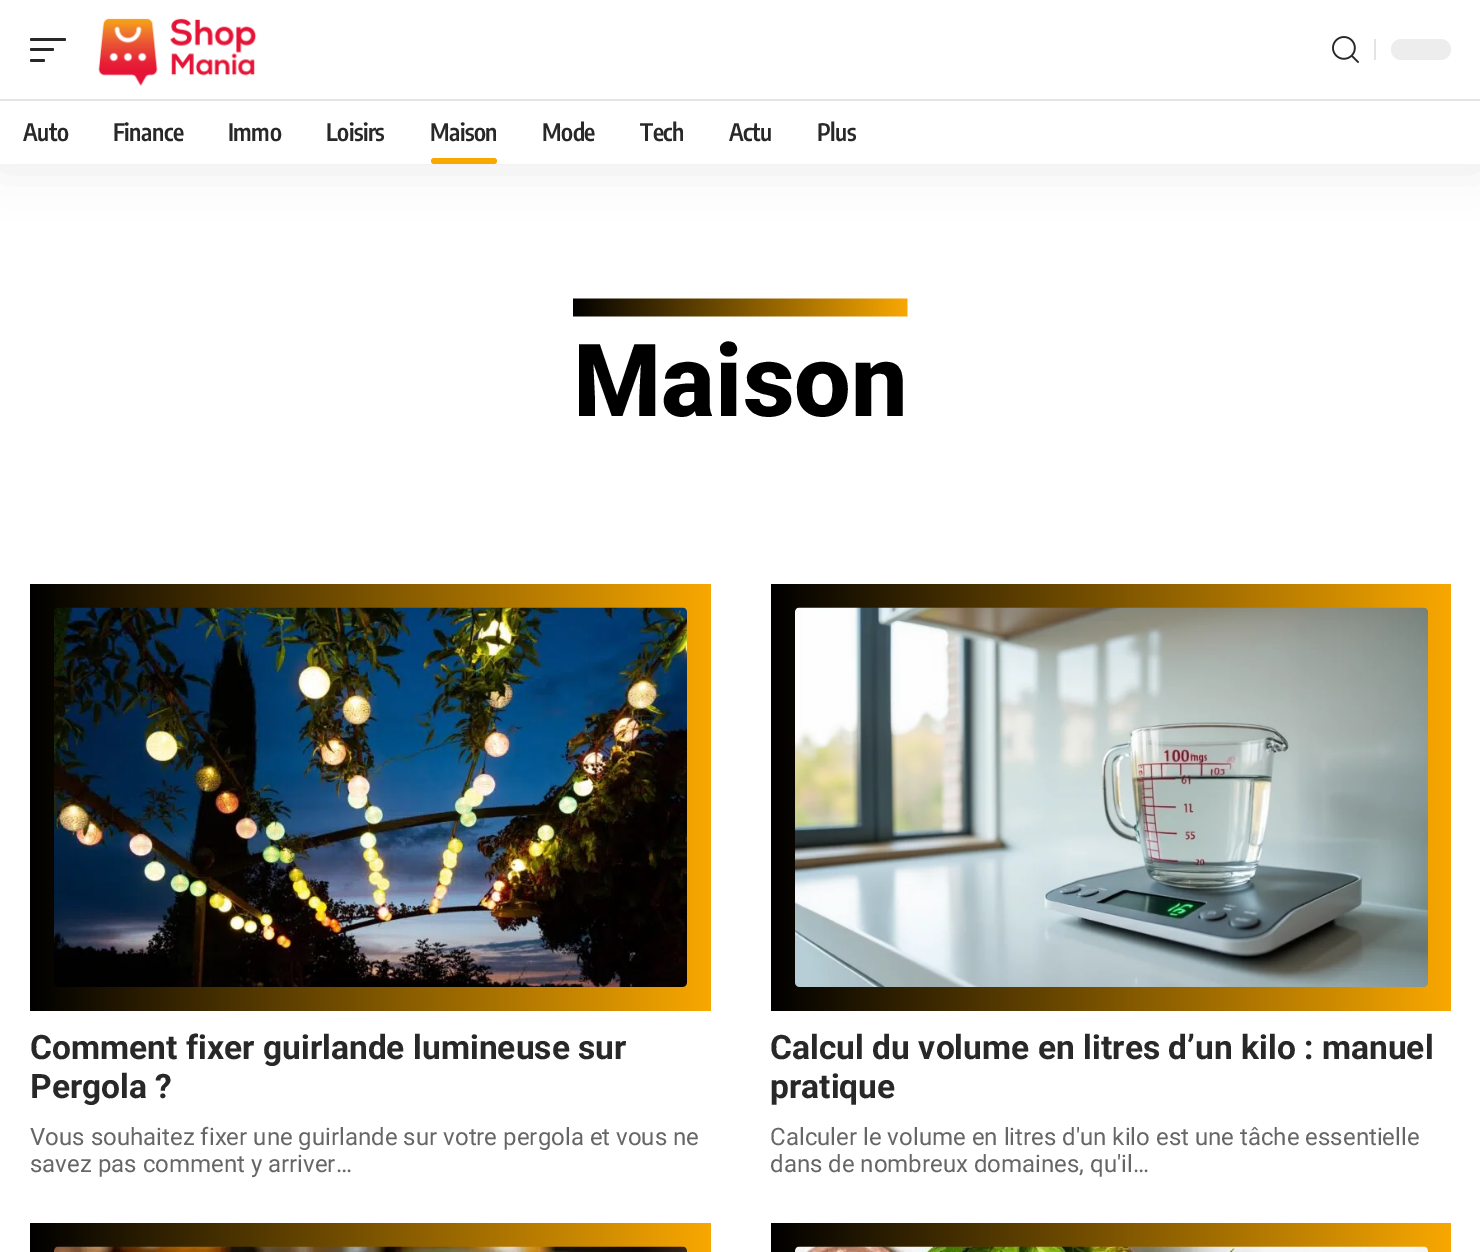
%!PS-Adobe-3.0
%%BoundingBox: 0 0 1480 1252
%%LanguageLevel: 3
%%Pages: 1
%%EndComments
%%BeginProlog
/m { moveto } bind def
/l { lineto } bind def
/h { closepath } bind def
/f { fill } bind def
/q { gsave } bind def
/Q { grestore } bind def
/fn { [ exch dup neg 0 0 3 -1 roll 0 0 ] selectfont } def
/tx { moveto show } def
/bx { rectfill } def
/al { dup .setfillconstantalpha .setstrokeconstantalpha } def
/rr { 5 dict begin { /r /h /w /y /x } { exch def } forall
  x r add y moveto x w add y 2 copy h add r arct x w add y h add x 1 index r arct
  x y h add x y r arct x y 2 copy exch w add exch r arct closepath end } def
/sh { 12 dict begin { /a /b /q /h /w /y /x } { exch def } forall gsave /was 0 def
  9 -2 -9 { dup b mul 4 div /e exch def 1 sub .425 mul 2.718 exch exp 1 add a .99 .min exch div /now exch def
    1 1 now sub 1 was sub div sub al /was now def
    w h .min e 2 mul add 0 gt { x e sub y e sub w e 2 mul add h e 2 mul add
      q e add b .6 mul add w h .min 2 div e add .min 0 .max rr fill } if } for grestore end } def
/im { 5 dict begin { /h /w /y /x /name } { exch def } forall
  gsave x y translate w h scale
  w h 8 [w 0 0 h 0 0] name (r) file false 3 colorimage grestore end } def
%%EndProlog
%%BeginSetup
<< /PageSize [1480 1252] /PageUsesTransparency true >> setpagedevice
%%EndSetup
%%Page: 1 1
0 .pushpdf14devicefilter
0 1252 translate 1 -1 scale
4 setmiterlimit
1 setgray
0 0 1480 1252 bx
0 setgray
0 6 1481 164 0 22.5 0.07 sh
1 setgray
0 0 1480 164 bx
0.157 setgray
30 38 36 3 1.5 rr f
30 48 24 3 1.5 rr f
30 59 15 3 1.5 rr f
(image0.raw) 98 18 159 68 im
(image1.raw) 1332 36 27 27 im
0.894 setgray
1374 39 2 21 bx
0.929 setgray
1391 39 60 21 10.5 rr f
0.894 setgray
0 99 1480 2 bx
/EncodeSansCondensed-SemiBold 24 fn
0.157 setgray
23 141 m -0.5 0 (Auto) ashow
113 141 m -0.5 0 (Finance) ashow
228 141 m -0.5 0 (Immo) ashow
326 141 m -0.5 0 (Loisirs) ashow
430 141 m -0.5 0 (Maison) ashow
0.976 0.659 0 setrgbcolor
431 158 66 6 3 rr f
0.157 setgray
542 141 m -0.5 0 (Mode) ashow
640 141 m -0.5 0 (Tech) ashow
729 141 m -0.5 0 (Actu) ashow
817 141 m -0.5 0 (Plus) ashow
(image2.raw) 573 298 335 19 im
/Roboto-ExtraBold 101 fn
0 setgray
(Maison) 573 416 tx
q 30 584 m 711 584 l 711 1011 l 30 1011 l h clip newpath
<< /ShadingType 2 /ColorSpace /DeviceRGB /Coords [711 797 30 797] /Extend [true true] /Function << /FunctionType 2 /Domain [0 1] /C0 [0.976 0.659 0] /C1 [0 0 0] /N 1 >> >> shfill Q
(image3.raw) 54 607 633 380 im
/Roboto-Bold 33.6 fn
0.157 setgray
(Comment fixer guirlande lumineuse sur) 30 1059 tx
(Pergola ?) 30 1098 tx
/Roboto-Regular 24 fn
0.4 setgray
(Vous souhaitez fixer une guirlande sur votre pergola et vous ne) 30 1145 tx
(savez pas comment y arriver…) 30 1172 tx
q 771 584 m 1451 584 l 1451 1011 l 771 1011 l h clip newpath
<< /ShadingType 2 /ColorSpace /DeviceRGB /Coords [1451 797 771 797] /Extend [true true] /Function << /FunctionType 2 /Domain [0 1] /C0 [0.976 0.659 0] /C1 [0 0 0] /N 1 >> >> shfill Q
(image4.raw) 795 607 633 380 im
/Roboto-Bold 33.6 fn
0.157 setgray
(Calcul du volume en litres d’un kilo : manuel) 770 1059 tx
(pratique) 770 1098 tx
/Roboto-Regular 24 fn
0.4 setgray
(Calculer le volume en litres d'un kilo est une tâche essentielle) 770 1145 tx
(dans de nombreux domaines, qu'il…) 770 1172 tx
q 30 1223 m 711 1223 l 711 1252 l 30 1252 l h clip newpath
<< /ShadingType 2 /ColorSpace /DeviceRGB /Coords [711 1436 30 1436] /Extend [true true] /Function << /FunctionType 2 /Domain [0 1] /C0 [0.976 0.659 0] /C1 [0 0 0] /N 1 >> >> shfill Q
(image5.raw) 54 1246 633 6 im
q 771 1223 m 1451 1223 l 1451 1252 l 771 1252 l h clip newpath
<< /ShadingType 2 /ColorSpace /DeviceRGB /Coords [1451 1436 771 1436] /Extend [true true] /Function << /FunctionType 2 /Domain [0 1] /C0 [0.976 0.659 0] /C1 [0 0 0] /N 1 >> >> shfill Q
(image6.raw) 795 1246 633 6 im
.poppdf14devicefilter showpage
%%EOF
